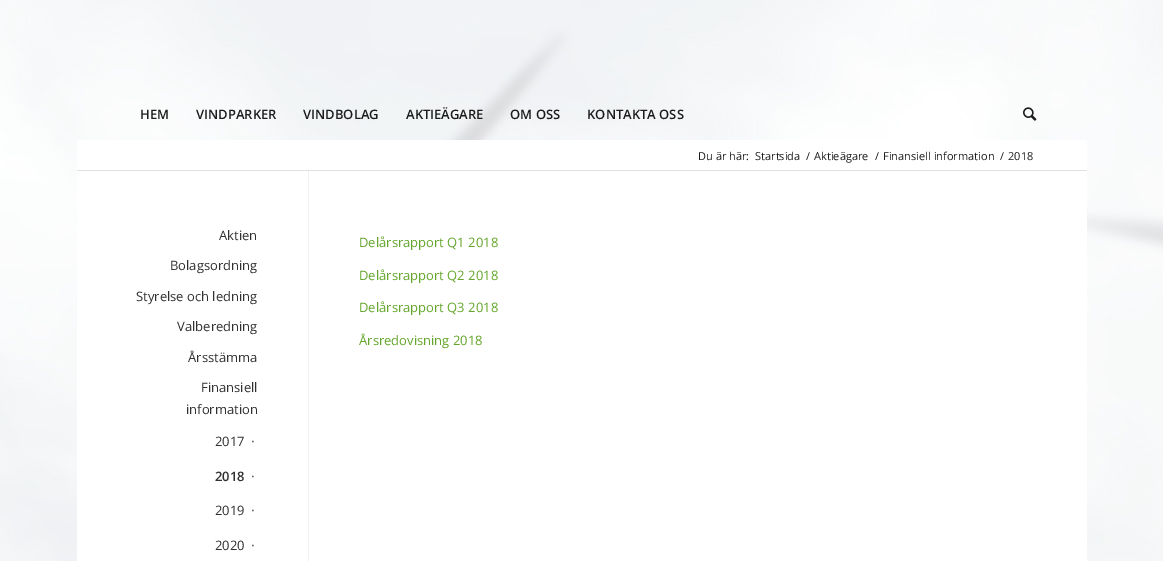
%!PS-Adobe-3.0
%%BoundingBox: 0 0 1163 561
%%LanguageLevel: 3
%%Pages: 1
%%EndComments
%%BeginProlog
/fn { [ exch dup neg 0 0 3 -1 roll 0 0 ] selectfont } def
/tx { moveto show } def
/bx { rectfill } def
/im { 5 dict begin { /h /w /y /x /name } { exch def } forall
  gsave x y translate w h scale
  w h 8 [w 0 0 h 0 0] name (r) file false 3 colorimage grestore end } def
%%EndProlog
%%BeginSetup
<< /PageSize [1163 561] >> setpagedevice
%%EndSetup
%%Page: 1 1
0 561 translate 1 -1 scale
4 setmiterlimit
1 setgray
0 0 1163 561 bx
(image0.raw) 0 0 1163 561 im
/OpenSans-SemiBold 13 fn
0.11 setgray
(HEM) 140 119 tx
(VINDPARKER) 196 119 tx
(VINDBOLAG) 303 119 tx
(AKTIEÄGARE) 406 119 tx
(OM OSS) 510 119 tx
(KONTAKTA OSS) 587 119 tx
(image1.raw) 1023 107 14 14 im
1 setgray
77 140 1010 30 bx
/OpenSans-Regular 11 fn
0.11 setgray
(Du är här:) 698 160 tx
(Startsida) 755 160 tx
(/) 806 160 tx
(Aktieägare) 814 160 tx
(/) 875 160 tx
(Finansiell information) 883 160 tx
(/) 1000 160 tx
(2018) 1008 160 tx
1 setgray
77 171 1010 390 bx
0.882 setgray
77 170 1010 1 bx
0.945 setgray
308 171 1 390 bx
/OpenSans-Regular 13 fn
0.188 setgray
(Aktien) 219 240 tx
(Bolagsordning) 170 270 tx
(Styrelse och ledning) 136 301 tx
(Valberedning) 177 331 tx
(Årsstämma) 188 362 tx
(Finansiell) 201 392 tx
(information) 186 414 tx
(2017) 215 446 tx
/LiberationSans-Regular 13 fn
(∙) 251 445 tx
/OpenSans-SemiBold 13 fn
(2018) 215 481 tx
/LiberationSans-Regular 13 fn
(∙) 251 480 tx
/OpenSans-Regular 13 fn
(2019) 215 515 tx
/LiberationSans-Regular 13 fn
(∙) 251 514 tx
/OpenSans-Regular 13 fn
(2020) 215 550 tx
/LiberationSans-Regular 13 fn
(∙) 251 549 tx
/OpenSans-Regular 13 fn
0.392 0.651 0.169 setrgbcolor
(Delårsrapport Q1 2018) 359 247 tx
(Delårsrapport Q2 2018) 359 280 tx
(Delårsrapport Q3 2018) 359 312 tx
(Årsredovisning 2018) 359 345 tx
showpage
%%EOF
